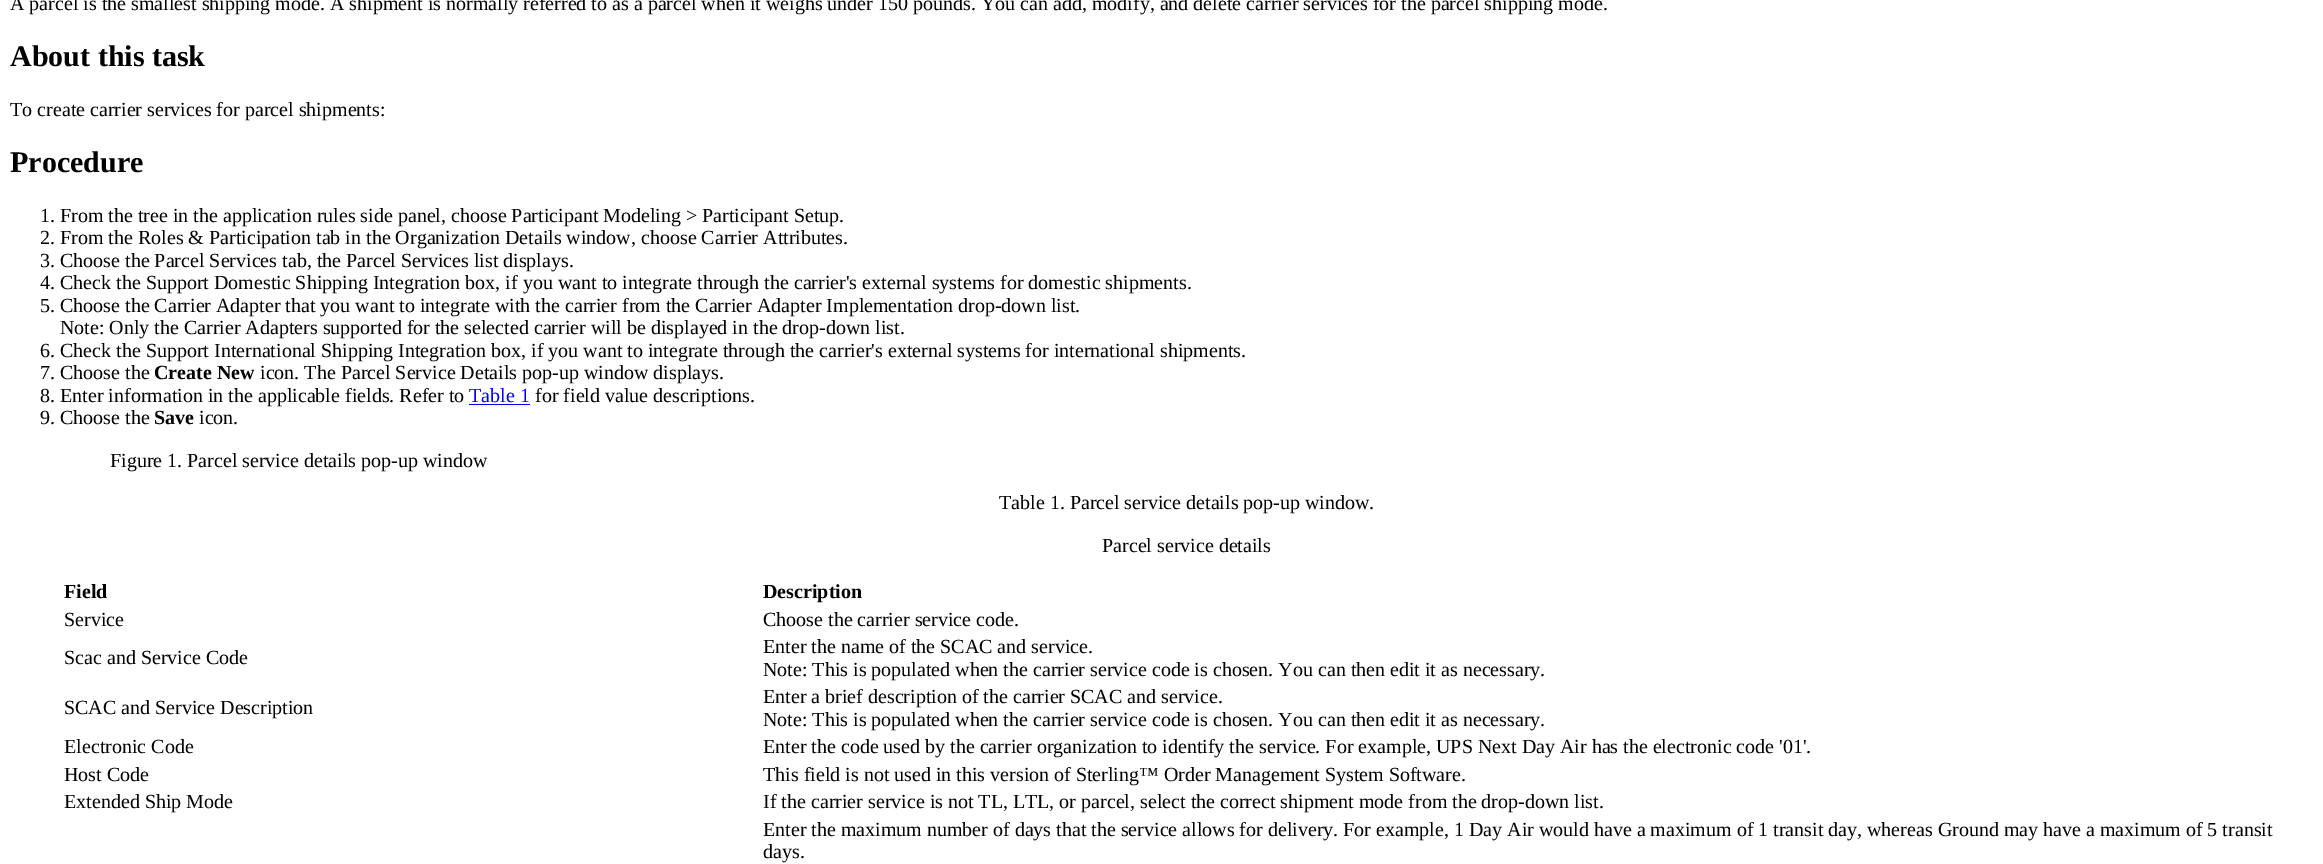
%!PS-Adobe-3.0
%%BoundingBox: 0 0 2323 864
%%LanguageLevel: 3
%%Pages: 1
%%EndComments
%%BeginProlog
/fn { [ exch dup neg 0 0 3 -1 roll 0 0 ] selectfont } def
/tx { moveto show } def
/bx { rectfill } def
%%EndProlog
%%BeginSetup
<< /PageSize [2323 864] >> setpagedevice
%%EndSetup
%%Page: 1 1
0 864 translate 1 -1 scale
4 setmiterlimit
1 setgray
0 0 2323 864 bx
/LiberationSerif-Regular 20 fn
0 setgray
(A parcel is the smallest shipping mode. A shipment is normally referred to as a parcel when it weighs under 150 pounds. You can add, modify, and delete carrier services for the parcel shipping mode.) 10 10 tx
/LiberationSerif-Bold 30 fn
(About this task) 10 66 tx
/LiberationSerif-Regular 20 fn
(To create carrier services for parcel shipments:) 10 116 tx
/LiberationSerif-Bold 30 fn
(Procedure) 10 172 tx
/LiberationSerif-Regular 20 fn
(1. From the tree in the application rules side panel, choose Participant Modeling > Participant Setup.) 40 222 tx
(2. From the Roles & Participation tab in the Organization Details window, choose Carrier Attributes.) 40 244 tx
(3. Choose the Parcel Services tab, the Parcel Services list displays.) 40 267 tx
(4. Check the Support Domestic Shipping Integration box, if you want to integrate through the carrier's external systems for domestic shipments.) 40 289 tx
(5. Choose the Carrier Adapter that you want to integrate with the carrier from the Carrier Adapter Implementation drop-down list.) 40 312 tx
(Note: Only the Carrier Adapters supported for the selected carrier will be displayed in the drop-down list.) 60 334 tx
(6. Check the Support International Shipping Integration box, if you want to integrate through the carrier's external systems for international shipments.) 40 357 tx
(7. Choose the) 40 379 tx
/LiberationSerif-Bold 20 fn
(Create New) 154 379 tx
/LiberationSerif-Regular 20 fn
(icon. The Parcel Service Details pop-up window displays.) 260 379 tx
(8. Enter information in the applicable fields. Refer to) 40 402 tx
0 0 0.933 setrgbcolor
(Table 1) 469 402 tx
469 404 61 1 bx
0 setgray
(for field value descriptions.) 535 402 tx
(9. Choose the) 40 424 tx
/LiberationSerif-Bold 20 fn
(Save) 154 424 tx
/LiberationSerif-Regular 20 fn
(icon.) 199 424 tx
(Figure 1. Parcel service details pop-up window) 110 467 tx
(Table 1. Parcel service details pop-up window.) 999 509 tx
(Parcel service details) 1102 552 tx
/LiberationSerif-Bold 20 fn
(Field) 64 598 tx
(Description) 763 598 tx
/LiberationSerif-Regular 20 fn
(Service) 64 626 tx
(Choose the carrier service code.) 763 626 tx
(Scac and Service Code) 64 664 tx
(Enter the name of the SCAC and service.) 763 653 tx
(Note: This is populated when the carrier service code is chosen. You can then edit it as necessary.) 763 676 tx
(SCAC and Service Description) 64 714 tx
(Enter a brief description of the carrier SCAC and service.) 763 703 tx
(Note: This is populated when the carrier service code is chosen. You can then edit it as necessary.) 763 726 tx
(Electronic Code) 64 753 tx
(Enter the code used by the carrier organization to identify the service. For example, UPS Next Day Air has the electronic code '01'.) 763 753 tx
(Host Code) 64 781 tx
(This field is not used in this version of Sterling™ Order Management System Software.) 763 781 tx
(Extended Ship Mode) 64 808 tx
(If the carrier service is not TL, LTL, or parcel, select the correct shipment mode from the drop-down list.) 763 808 tx
(Enter the maximum number of days that the service allows for delivery. For example, 1 Day Air would have a maximum of 1 transit day, whereas Ground may have a maximum of 5 transit) 763 836 tx
(days.) 763 858 tx
showpage
%%EOF
